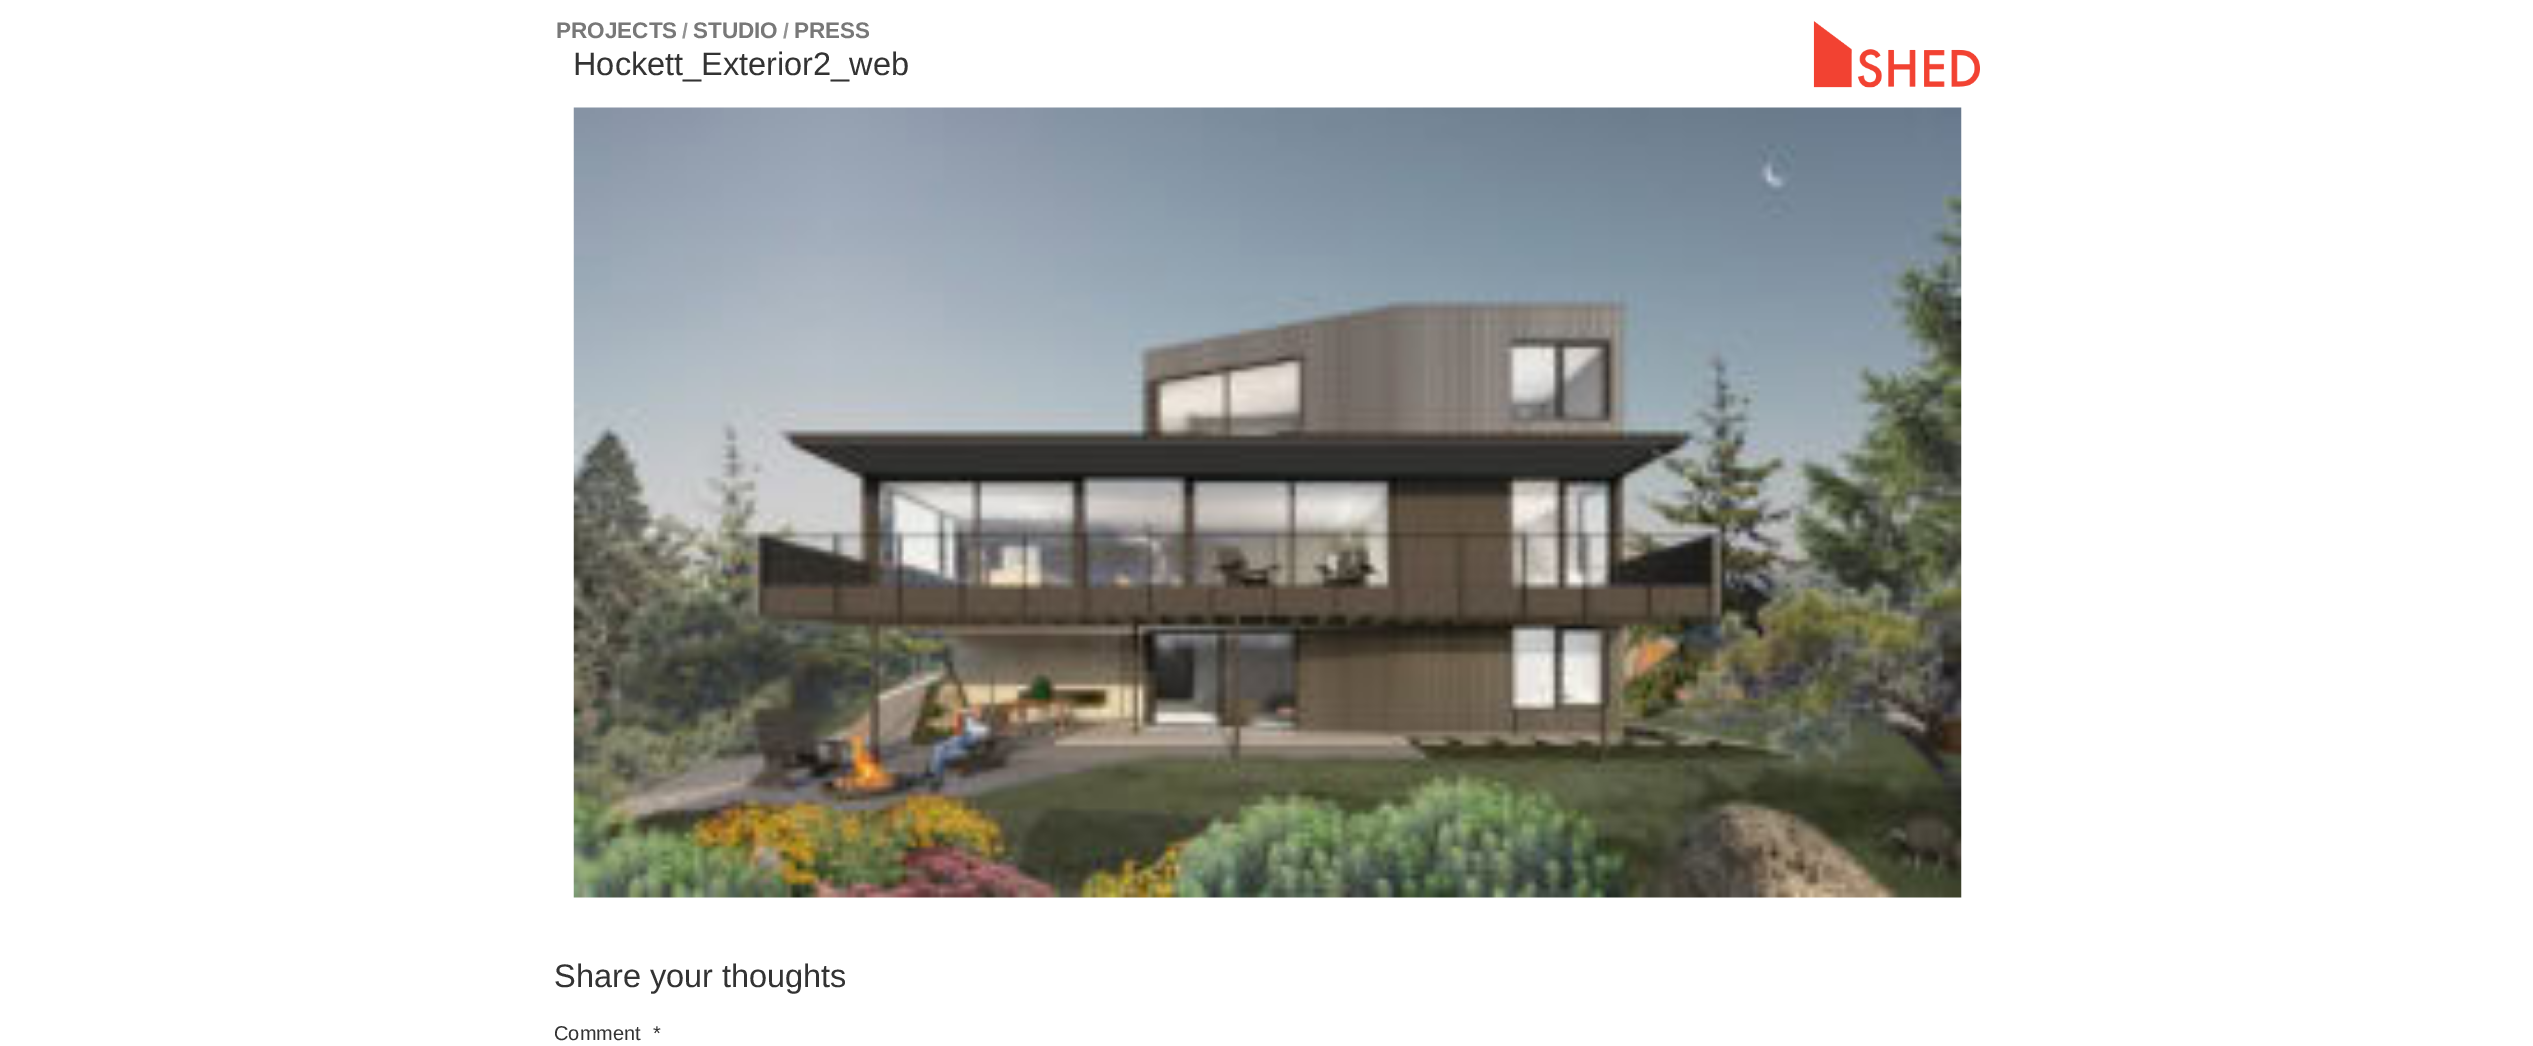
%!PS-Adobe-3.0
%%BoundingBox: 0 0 2533 1046
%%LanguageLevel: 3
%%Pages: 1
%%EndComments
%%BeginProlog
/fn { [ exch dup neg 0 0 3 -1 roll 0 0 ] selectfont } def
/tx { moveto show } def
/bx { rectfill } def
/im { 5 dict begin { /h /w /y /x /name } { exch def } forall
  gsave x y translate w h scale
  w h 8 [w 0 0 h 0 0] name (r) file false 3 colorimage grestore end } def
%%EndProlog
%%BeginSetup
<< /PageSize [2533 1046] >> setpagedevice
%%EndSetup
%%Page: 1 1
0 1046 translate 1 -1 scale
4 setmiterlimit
1 setgray
0 0 2533 1046 bx
/LiberationSans-Bold 22.5 fn
0.471 setgray
(PROJECTS) 556 38 tx
/LiberationSans-Bold 21 fn
0.576 setgray
(/) 682 38 tx
/LiberationSans-Bold 22.5 fn
0.471 setgray
(STUDIO) 693 38 tx
/LiberationSans-Bold 21 fn
0.576 setgray
(/) 783 38 tx
/LiberationSans-Bold 22.5 fn
0.471 setgray
(PRESS) 794 38 tx
(image0.raw) 1813 21 167 67 im
/LiberationSans-Regular 32.5 fn
0.2 setgray
(Hockett_Exterior2_web) 573 75 tx
(image1.raw) 573 107 1389 791 im
(Share your thoughts) 554 987 tx
/LiberationSans-Regular 20 fn
(Comment) 554 1040 tx
(*) 653 1040 tx
showpage
%%EOF
